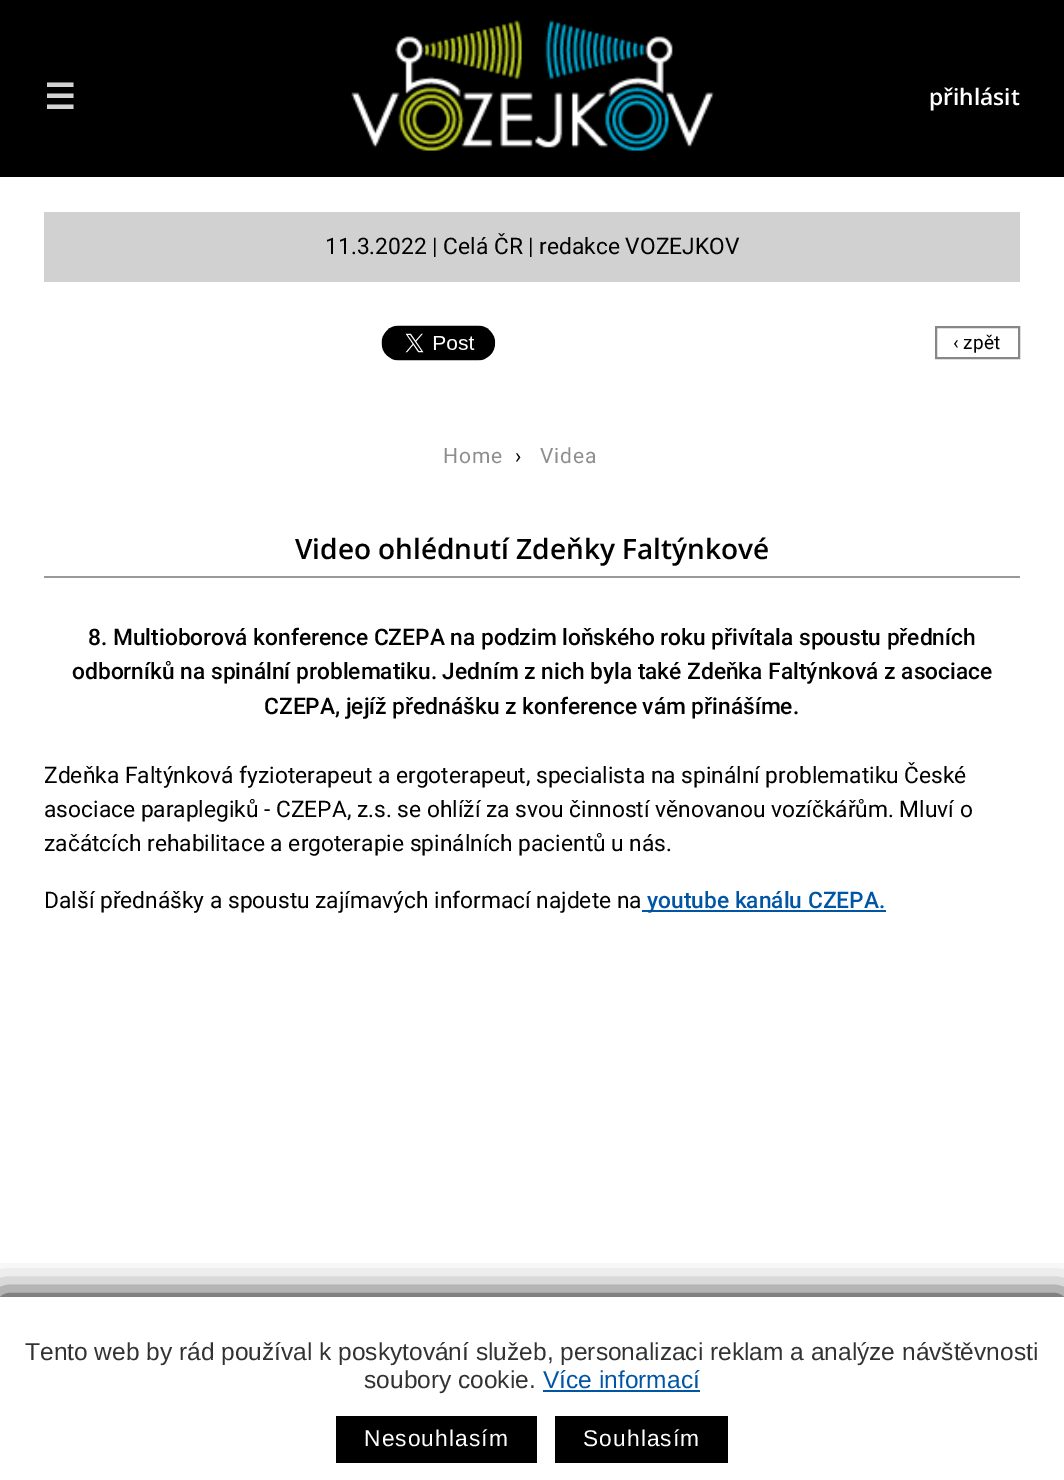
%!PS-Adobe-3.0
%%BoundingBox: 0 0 1064 1480
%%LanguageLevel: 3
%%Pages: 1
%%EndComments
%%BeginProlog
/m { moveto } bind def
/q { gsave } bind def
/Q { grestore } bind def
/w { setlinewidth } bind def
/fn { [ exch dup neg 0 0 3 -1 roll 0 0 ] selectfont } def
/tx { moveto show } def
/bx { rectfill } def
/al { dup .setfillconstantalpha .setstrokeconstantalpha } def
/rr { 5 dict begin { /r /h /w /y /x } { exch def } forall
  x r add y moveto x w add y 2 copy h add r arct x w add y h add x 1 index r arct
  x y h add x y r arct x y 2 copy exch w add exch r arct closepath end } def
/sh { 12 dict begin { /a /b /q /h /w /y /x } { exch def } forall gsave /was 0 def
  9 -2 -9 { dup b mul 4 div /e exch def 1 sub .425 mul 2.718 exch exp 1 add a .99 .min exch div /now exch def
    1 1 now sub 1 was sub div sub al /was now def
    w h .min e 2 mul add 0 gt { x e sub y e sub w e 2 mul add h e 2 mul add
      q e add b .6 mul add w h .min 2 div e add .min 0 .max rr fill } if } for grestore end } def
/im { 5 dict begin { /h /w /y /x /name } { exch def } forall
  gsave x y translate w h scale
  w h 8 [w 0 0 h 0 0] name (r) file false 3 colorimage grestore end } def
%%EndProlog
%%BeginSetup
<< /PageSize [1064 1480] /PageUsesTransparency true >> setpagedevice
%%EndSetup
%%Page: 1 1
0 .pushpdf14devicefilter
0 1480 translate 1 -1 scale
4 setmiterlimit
1 setgray
0 0 1064 1480 bx
0 setgray
0 0 1064 177 bx
/DejaVuSans-Bold 35 fn
0.827 setgray
(☰) 44 109 tx
(image0.raw) 351 20 363 131 im
/OpenSans-SemiBold 22.75 fn
1 setgray
(přihlásit) 929 105 tx
0.82 setgray
44 212 976 70 bx
/Roboto-Regular 22.75 fn
0 setgray
(11.3.2022 | Celá ČR | redakce VOZEJKOV) 325 254 tx
(image1.raw) 381 325 115 36 im
0.529 setgray
2 w
936 327 83 31 rectstroke
/Roboto-Regular 19 fn
0 setgray
(‹ zpět) 953 349 tx
/Roboto-Regular 21 fn
0.561 0.557 0.557 setrgbcolor
443 463 m 1 0 (Home) ashow
0 setgray
515 463 m 6 0 (›) ashow
0.561 0.557 0.557 setrgbcolor
540 463 m 1 0 (Videa) ashow
0.6 setgray
44 576 976 2 bx
/OpenSans-SemiBold 28 fn
0 setgray
(Video ohlédnutí Zdeňky Faltýnkové) 295 559 tx
/Roboto-Medium 22.75 fn
(8. Multioborová konference CZEPA na podzim loňského roku přivítala spoustu předních) 88 645 tx
(odborníků na spinální problematiku. Jedním z nich byla také Zdeňka Faltýnková z asociace) 72 679 tx
(CZEPA, jejíž přednášku z konference vám přinášíme.) 264 714 tx
/Roboto-Regular 22.75 fn
(Zdeňka Faltýnková fyzioterapeut a ergoterapeut, specialista na spinální problematiku České) 44 783 tx
(asociace paraplegiků - CZEPA, z.s. se ohlíží za svou činností věnovanou vozíčkářům. Mluví o) 44 817 tx
(začátcích rehabilitace a ergoterapie spinálních pacientů u nás.) 44 851 tx
(Další přednášky a spoustu zajímavých informací najdete na) 44 908 tx
0 0.333 0.647 setrgbcolor
642 910 244 2 bx
/Roboto-Medium 22.75 fn
(youtube kanálu CZEPA.) 647 908 tx
q
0 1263 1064 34 rectclip
0 setgray
0 1297 1064 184 0 16.5 1 sh
Q
/LiberationSans-Regular 24.5 fn
0.196 setgray
(Tento web by rád používal k poskytování služeb, personalizaci reklam a analýze návštěvnosti) 25 1360 tx
(soubory cookie.) 364 1388 tx
0 0.333 0.647 setrgbcolor
(Více informací) 543 1388 tx
543 1390 157 2 bx
0 setgray
336 1416 201 47 bx
/LiberationSans-Regular 22.75 fn
1 setgray
364 1446 m 1.1 0 (Nesouhlasím) ashow
0 setgray
555 1416 173 47 bx
1 setgray
583 1446 m 1.1 0 (Souhlasím) ashow
.poppdf14devicefilter showpage
%%EOF
